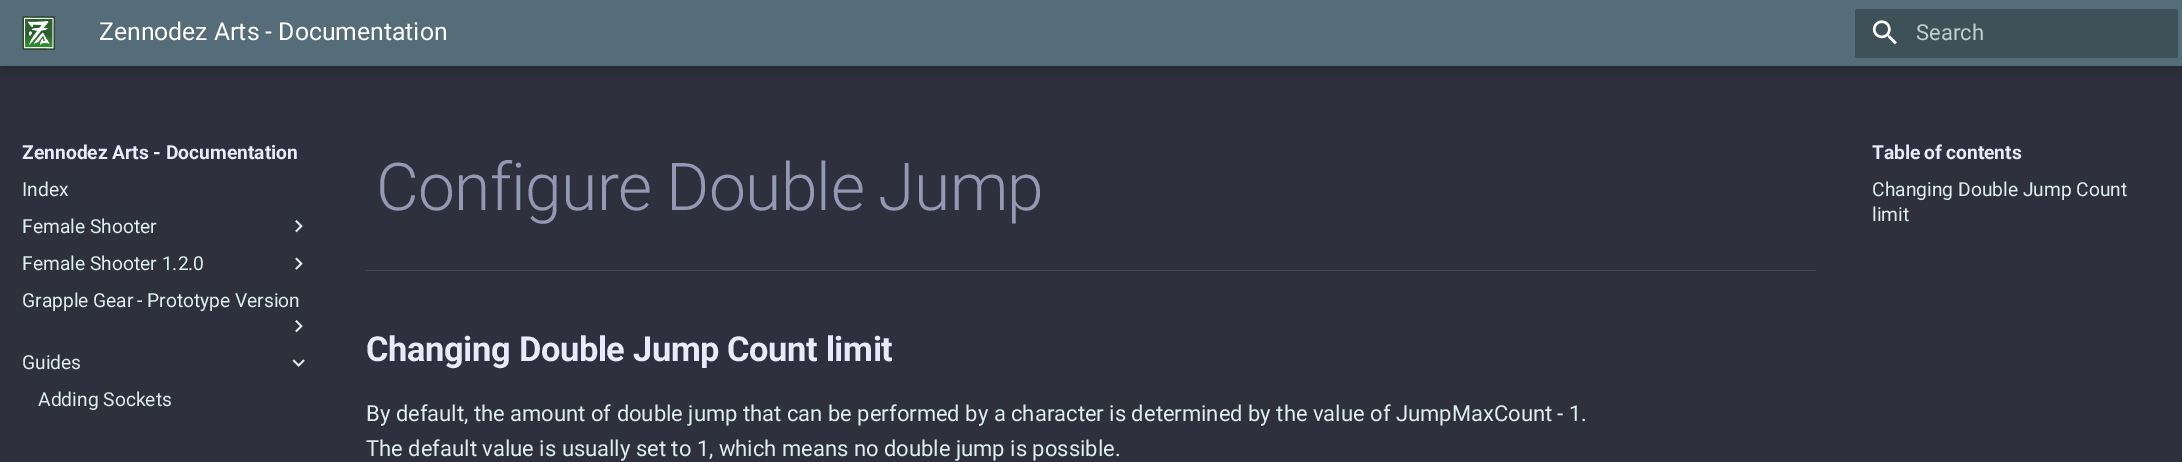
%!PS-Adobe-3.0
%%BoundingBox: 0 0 2182 462
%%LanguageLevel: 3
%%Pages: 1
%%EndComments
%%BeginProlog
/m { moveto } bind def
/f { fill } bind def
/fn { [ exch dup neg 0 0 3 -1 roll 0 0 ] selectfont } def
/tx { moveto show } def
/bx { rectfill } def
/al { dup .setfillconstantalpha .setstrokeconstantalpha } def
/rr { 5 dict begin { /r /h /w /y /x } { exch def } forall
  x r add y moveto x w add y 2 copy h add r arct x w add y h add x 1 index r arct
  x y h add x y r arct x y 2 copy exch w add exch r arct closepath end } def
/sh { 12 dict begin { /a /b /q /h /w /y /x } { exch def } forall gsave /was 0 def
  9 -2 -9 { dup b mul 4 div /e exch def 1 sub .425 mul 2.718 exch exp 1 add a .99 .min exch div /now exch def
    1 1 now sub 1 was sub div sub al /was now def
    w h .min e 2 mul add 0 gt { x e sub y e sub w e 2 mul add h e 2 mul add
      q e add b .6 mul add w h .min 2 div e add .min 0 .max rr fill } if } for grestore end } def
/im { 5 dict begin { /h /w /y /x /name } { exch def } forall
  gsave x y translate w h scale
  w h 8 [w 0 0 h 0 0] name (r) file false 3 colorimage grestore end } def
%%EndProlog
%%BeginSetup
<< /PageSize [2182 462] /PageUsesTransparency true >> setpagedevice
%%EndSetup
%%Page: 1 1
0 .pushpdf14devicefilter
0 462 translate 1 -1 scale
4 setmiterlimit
0.18 0.188 0.243 setrgbcolor
0 0 2182 462 bx
0 setgray
0 5 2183 66 0 5.5 0.2 sh
0.329 0.427 0.471 setrgbcolor
0 0 2182 66 bx
(image0.raw) 22 16 33 34 im
/Roboto-Regular 24.75 fn
1 setgray
(Zennodez Arts - Documentation) 99 40 tx
0.243 0.318 0.349 setrgbcolor
1855 9 323 49 2.5 rr f
(image1.raw) 1872 20 25 25 im
/Roboto-Regular 22 fn
0.773 0.796 0.804 setrgbcolor
(Search) 1916 40 tx
/Roboto-Bold 19.25 fn
0.914 0.922 0.988 setrgbcolor
(Zennodez Arts - Documentation) 22 159 tx
/Roboto-Regular 19.25 fn
0.867 0.933 0.933 setrgbcolor
(Index) 22 196 tx
(Female Shooter) 22 233 tx
(image2.raw) 295 220 8 13 im
(Female Shooter 1.2.0) 22 270 tx
(image3.raw) 295 257 8 13 im
22 307 m -0.5 0 32 (Grapple Gear - Prototype Version) widthshow
(image2.raw) 295 320 8 13 im
(Guides) 22 369 tx
(image4.raw) 292 359 13 8 im
(Adding Sockets) 38 406 tx
/Roboto-Light 66 fn
0.58 0.596 0.698 setrgbcolor
376 210 m -1 0 32 -0.7 0 (Configure Double Jump) awidthshow
0.259 0.267 0.329 setrgbcolor
366 270 1450 1 bx
/Roboto-Bold 34.4 fn
0.914 0.922 0.988 setrgbcolor
366 361 m -0.35 0 (Changing Double Jump Count limit) ashow
/Roboto-Regular 22 fn
0.867 0.933 0.933 setrgbcolor
(By default, the amount of double jump that can be performed by a character is determined by the value of JumpMaxCount - 1.) 366 421 tx
(The default value is usually set to 1, which means no double jump is possible.) 366 456 tx
/Roboto-Bold 19.25 fn
0.914 0.922 0.988 setrgbcolor
1872 159 m -1 0 32 (Table of contents) widthshow
/Roboto-Regular 19.25 fn
0.867 0.933 0.933 setrgbcolor
(Changing Double Jump Count) 1872 196 tx
(limit) 1872 221 tx
.poppdf14devicefilter showpage
%%EOF
